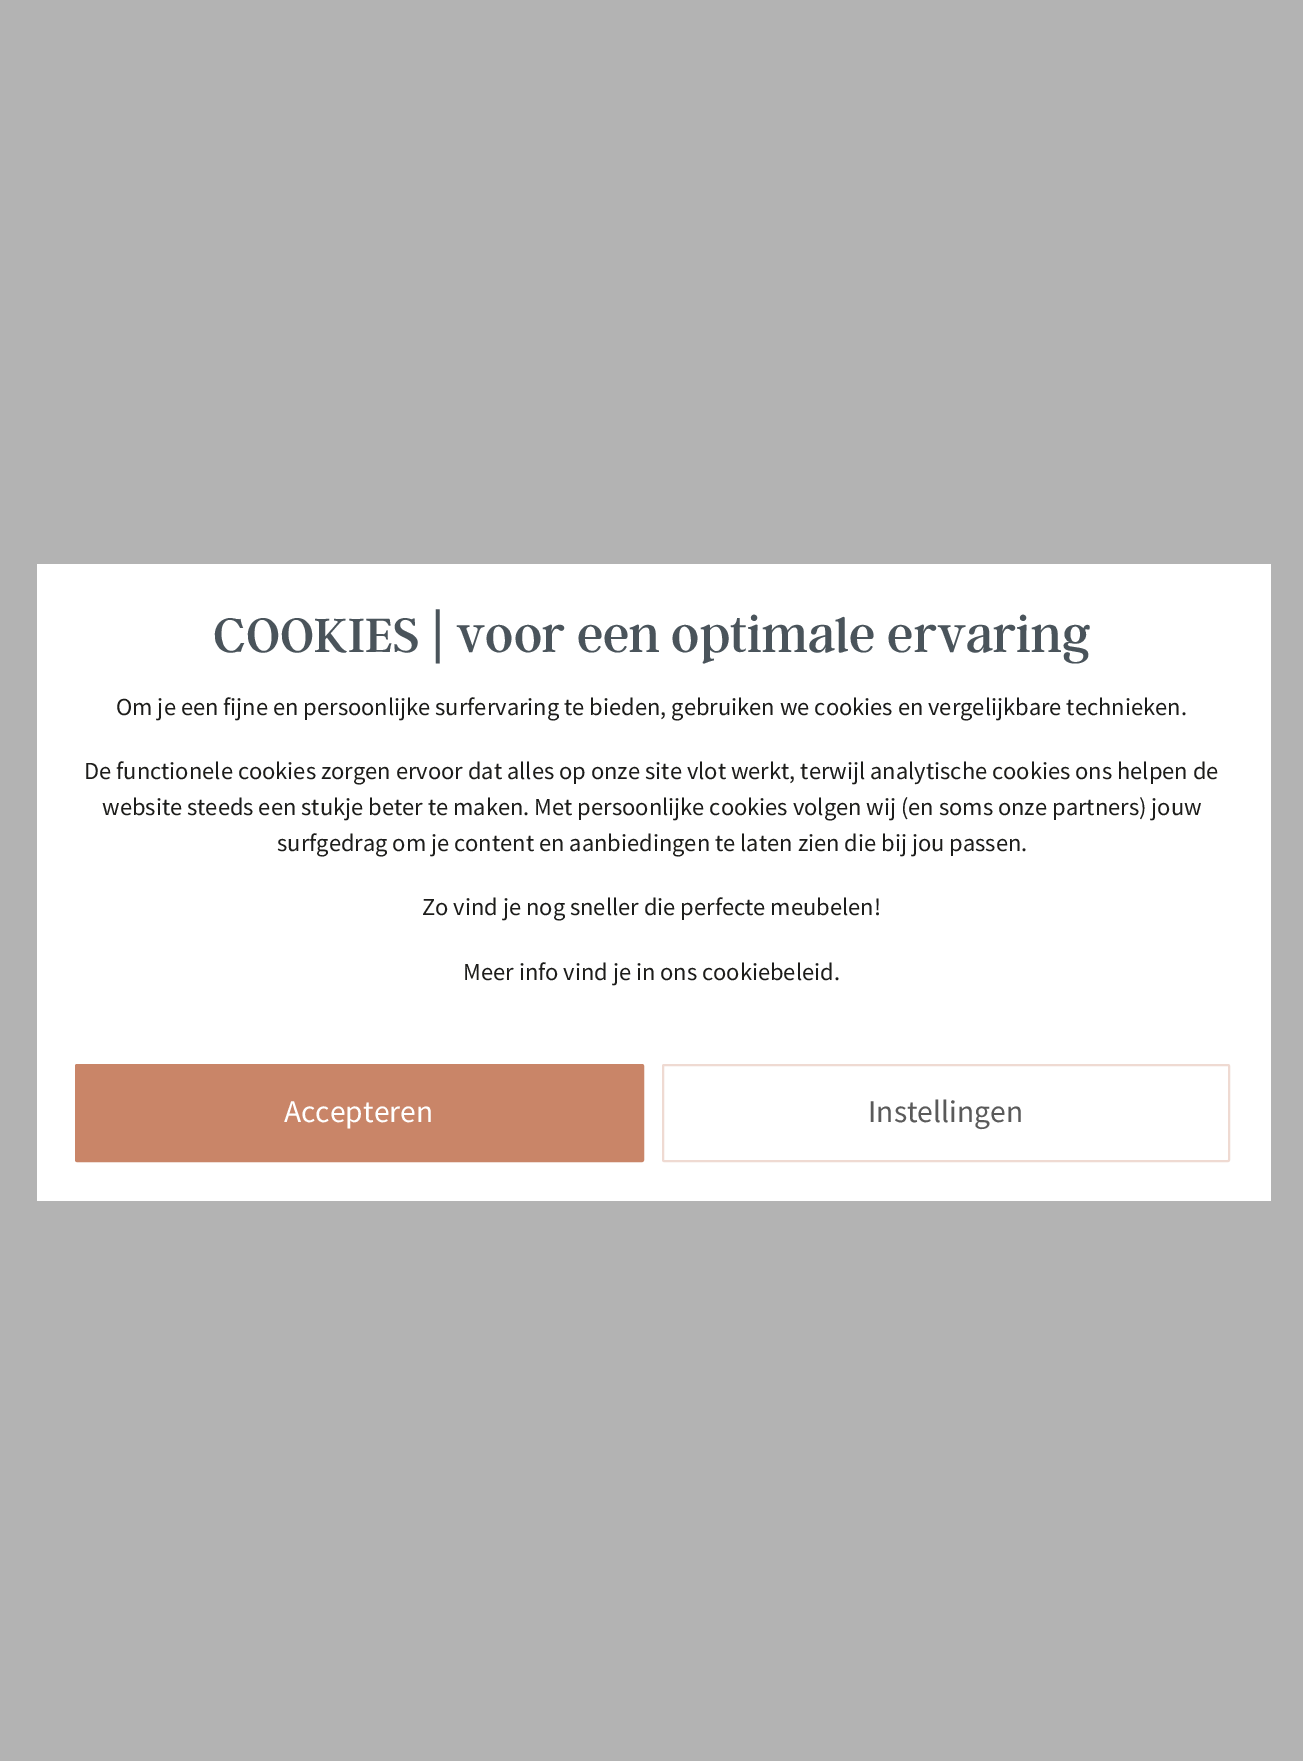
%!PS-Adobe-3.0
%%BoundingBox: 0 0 1303 1761
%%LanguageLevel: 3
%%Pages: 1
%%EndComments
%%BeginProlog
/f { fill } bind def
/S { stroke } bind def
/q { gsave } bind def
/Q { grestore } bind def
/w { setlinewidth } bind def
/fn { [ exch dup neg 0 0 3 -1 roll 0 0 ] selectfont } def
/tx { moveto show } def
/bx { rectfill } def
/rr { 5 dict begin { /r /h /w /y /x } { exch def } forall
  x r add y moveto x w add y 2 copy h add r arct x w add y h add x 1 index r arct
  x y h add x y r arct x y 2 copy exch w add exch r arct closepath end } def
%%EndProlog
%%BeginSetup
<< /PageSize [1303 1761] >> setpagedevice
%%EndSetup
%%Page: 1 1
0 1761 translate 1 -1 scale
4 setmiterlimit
0.702 setgray
0 0 1303 1761 bx
1 setgray
37 564 1234 637 bx
/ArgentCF-Regular 53.5 fn
0.29 0.329 0.357 setrgbcolor
(COOKIES | voor een optimale ervaring) 213 652 tx
/SourceSansPro-Regular 24.5 fn
0.114 0.114 0.106 setrgbcolor
(Om je een fijne en persoonlijke surfervaring te bieden, gebruiken we cookies en vergelijkbare technieken.) 116 715 tx
(De functionele cookies zorgen ervoor dat alles op onze site vlot werkt, terwijl analytische cookies ons helpen de) 84 779 tx
(website steeds een stukje beter te maken. Met persoonlijke cookies volgen wij \(en soms onze partners\) jouw) 102 815 tx
(surfgedrag om je content en aanbiedingen te laten zien die bij jou passen.) 277 851 tx
(Zo vind je nog sneller die perfecte meubelen!) 422 915 tx
(Meer info vind je in ons cookiebeleid.) 463 980 tx
0.788 0.522 0.408 setrgbcolor
76 1065 567 96 1 rr q f Q
2 w
S
/SourceSansPro-Regular 31.5 fn
1 setgray
(Accepteren) 284 1122 tx
0.937 0.855 0.824 setrgbcolor
663 1065 566 96 1 rr S
0.353 setgray
(Instellingen) 868 1122 tx
showpage
%%EOF
